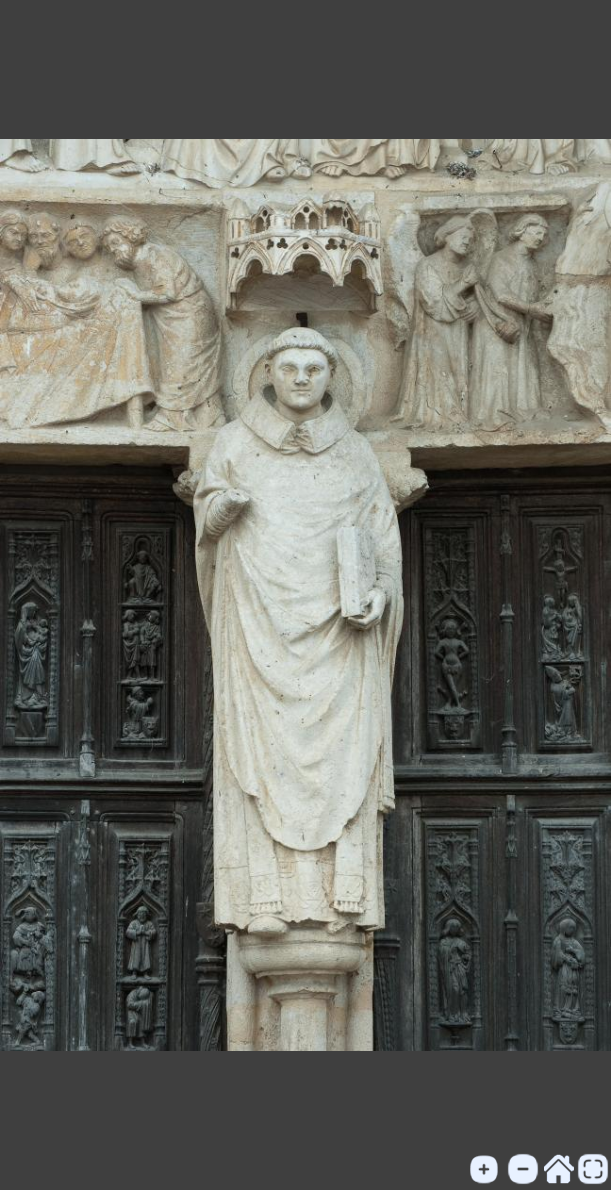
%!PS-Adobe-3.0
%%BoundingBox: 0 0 611 1190
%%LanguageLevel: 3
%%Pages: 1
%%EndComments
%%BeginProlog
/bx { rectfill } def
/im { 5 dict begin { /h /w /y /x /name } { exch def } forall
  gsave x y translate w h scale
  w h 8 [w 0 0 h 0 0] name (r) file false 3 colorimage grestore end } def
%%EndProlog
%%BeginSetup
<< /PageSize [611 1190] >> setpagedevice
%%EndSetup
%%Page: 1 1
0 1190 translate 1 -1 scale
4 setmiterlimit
0.247 setgray
0 0 611 1190 bx
(image0.raw) 0 139 611 912 im
(image1.raw) 470 1155 28 29 im
(image2.raw) 470 1155 28 29 im
(image3.raw) 507 1153 32 32 im
(image4.raw) 508 1154 30 30 im
(image5.raw) 544 1154 30 30 im
(image6.raw) 544 1154 30 30 im
(image7.raw) 577 1153 32 32 im
(image8.raw) 578 1154 30 30 im
showpage
%%EOF
